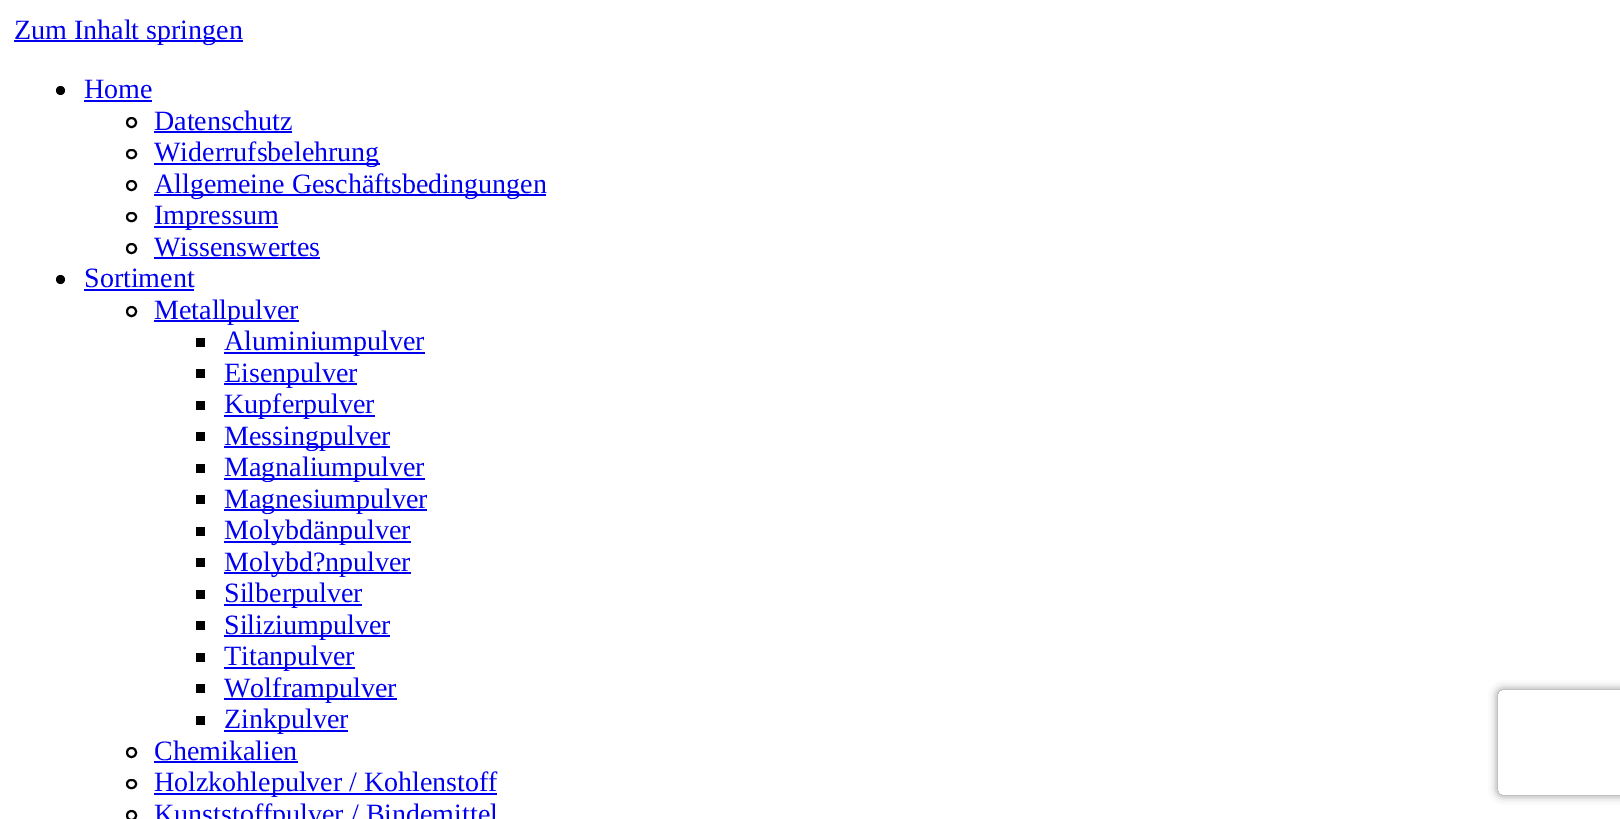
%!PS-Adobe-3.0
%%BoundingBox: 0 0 1620 819
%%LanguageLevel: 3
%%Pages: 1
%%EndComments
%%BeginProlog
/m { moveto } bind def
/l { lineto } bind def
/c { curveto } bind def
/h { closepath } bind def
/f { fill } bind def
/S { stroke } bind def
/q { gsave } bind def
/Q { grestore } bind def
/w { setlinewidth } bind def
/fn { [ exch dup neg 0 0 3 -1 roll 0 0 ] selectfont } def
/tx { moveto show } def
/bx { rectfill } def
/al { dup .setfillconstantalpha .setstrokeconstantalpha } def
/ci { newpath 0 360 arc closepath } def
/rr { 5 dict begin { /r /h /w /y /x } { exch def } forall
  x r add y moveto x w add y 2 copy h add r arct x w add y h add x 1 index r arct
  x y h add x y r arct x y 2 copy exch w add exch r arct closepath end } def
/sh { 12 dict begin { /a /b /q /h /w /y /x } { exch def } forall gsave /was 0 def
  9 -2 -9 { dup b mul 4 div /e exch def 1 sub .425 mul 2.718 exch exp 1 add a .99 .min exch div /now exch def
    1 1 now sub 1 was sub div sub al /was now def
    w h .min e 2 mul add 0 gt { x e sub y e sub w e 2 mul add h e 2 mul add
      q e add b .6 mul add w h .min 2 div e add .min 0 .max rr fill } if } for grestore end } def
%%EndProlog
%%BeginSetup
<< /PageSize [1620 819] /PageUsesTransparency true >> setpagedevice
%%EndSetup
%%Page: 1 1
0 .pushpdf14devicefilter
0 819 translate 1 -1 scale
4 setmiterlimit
1 setgray
0 0 1620 819 bx
0 0 0.933 setrgbcolor
14 40 229 2 bx
/LiberationSerif-Regular 28 fn
(Zum Inhalt springen) 14 39 tx
0 setgray
60.5 90.5 4.5 ci f
0 0 0.933 setrgbcolor
(Home) 84 98 tx
84 100 68 2 bx
0 setgray
2 w
131.5 122.5 4.5 ci S
0 0 0.933 setrgbcolor
(Datenschutz) 154 130 tx
154 131 138 2 bx
0 setgray
127 150 9 8 4 rr S
0 0 0.933 setrgbcolor
154 163 226 2 bx
(Widerrufsbelehrung) 154 161 tx
0 setgray
131.5 185.5 4.5 ci S
0 0 0.933 setrgbcolor
154 194 392 2 bx
(Allgemeine Geschäftsbedingungen) 154 193 tx
0 setgray
127 213 9 8 4 rr S
0 0 0.933 setrgbcolor
154 226 124 2 bx
(Impressum) 154 224 tx
0 setgray
131.5 248.5 4.5 ci S
0 0 0.933 setrgbcolor
(Wissenswertes) 154 256 tx
154 257 166 2 bx
0 setgray
60.5 279.5 4.5 ci f
0 0 0.933 setrgbcolor
(Sortiment) 84 287 tx
84 289 110 2 bx
0 setgray
131.5 311.5 4.5 ci S
0 0 0.933 setrgbcolor
154 320 145 2 bx
(Metallpulver) 154 319 tx
0 setgray
196 338 9 9 bx
0 0 0.933 setrgbcolor
224 352 201 2 bx
(Aluminiumpulver) 224 350 tx
0 setgray
196 369 9 9 bx
0 0 0.933 setrgbcolor
224 383 133 2 bx
(Eisenpulver) 224 382 tx
0 setgray
196 401 9 9 bx
0 0 0.933 setrgbcolor
224 415 151 2 bx
(Kupferpulver) 224 413 tx
0 setgray
196 432 9 9 bx
0 0 0.933 setrgbcolor
224 446 166 2 bx
(Messingpulver) 224 445 tx
0 setgray
196 464 9 9 bx
0 0 0.933 setrgbcolor
224 478 201 2 bx
(Magnaliumpulver) 224 476 tx
0 setgray
196 495 9 9 bx
0 0 0.933 setrgbcolor
224 509 203 2 bx
(Magnesiumpulver) 224 508 tx
0 setgray
196 527 9 9 bx
0 0 0.933 setrgbcolor
224 541 187 2 bx
(Molybdänpulver) 224 539 tx
0 setgray
196 558 9 9 bx
0 0 0.933 setrgbcolor
224 572 187 2 bx
(Molybd?npulver) 224 571 tx
0 setgray
196 590 9 9 bx
0 0 0.933 setrgbcolor
224 604 138 2 bx
(Silberpulver) 224 602 tx
0 setgray
196 621 9 9 bx
0 0 0.933 setrgbcolor
224 635 166 2 bx
(Siliziumpulver) 224 634 tx
0 setgray
196 653 9 9 bx
0 0 0.933 setrgbcolor
224 667 131 2 bx
(Titanpulver) 224 665 tx
0 setgray
196 684 9 9 bx
0 0 0.933 setrgbcolor
224 698 173 2 bx
(Wolframpulver) 224 697 tx
0 setgray
196 716 9 9 bx
0 0 0.933 setrgbcolor
224 730 124 2 bx
(Zinkpulver) 224 728 tx
0 setgray
131.5 752.5 4.5 ci S
0 0 0.933 setrgbcolor
(Chemikalien) 154 760 tx
154 761 144 2 bx
0 setgray
127 780 9 8 4 rr S
0 0 0.933 setrgbcolor
154 793 343 2 bx
(Holzkohlepulver / Kohlenstoff) 154 791 tx
0 setgray
131.5 815.5 4.5 ci S
0 0 0.933 setrgbcolor
(Kunststoffpulver / Bindemittel) 154 823 tx
q
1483 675 m 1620 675 l 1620 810 l 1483 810 l h 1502 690 m 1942 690 l 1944 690 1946 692 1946 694 c 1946 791 l 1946 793 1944 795 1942 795 c 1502 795 l 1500 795 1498 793 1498 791 c 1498 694 l 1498 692 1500 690 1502 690 c h eoclip newpath
0.502 setgray
1498 690 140 105 4 4.5 1 sh
Q
.poppdf14devicefilter showpage
%%EOF
